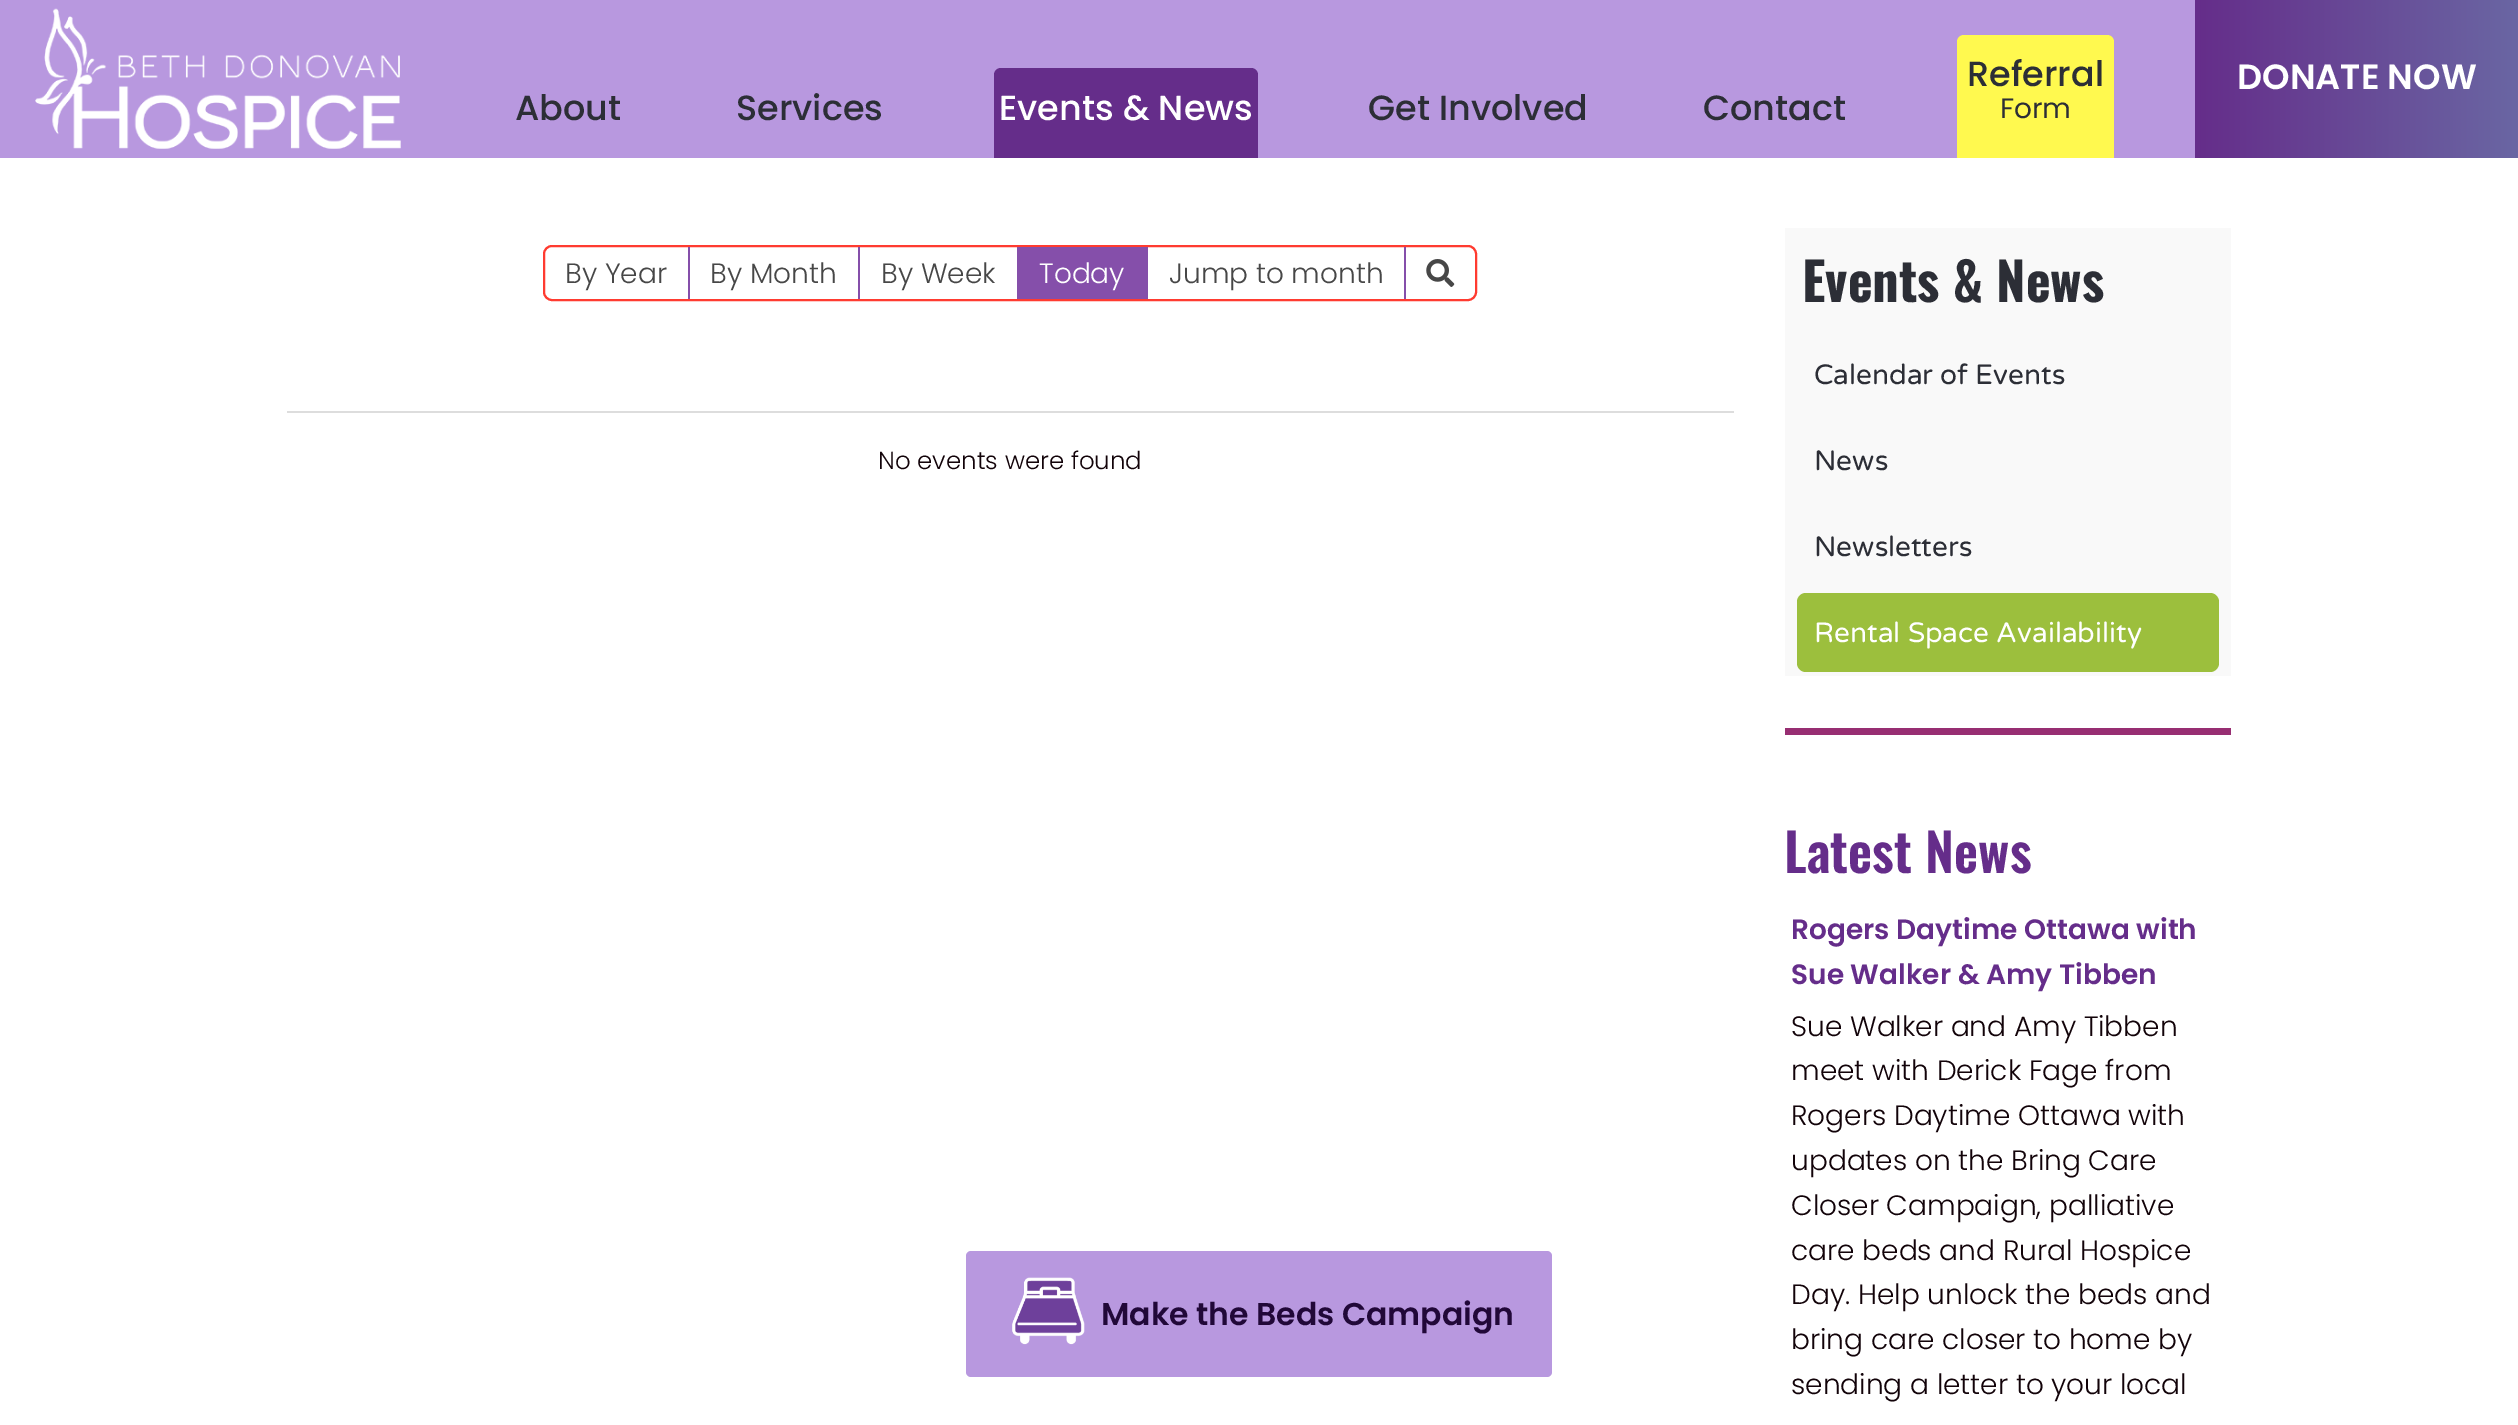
%!PS-Adobe-3.0
%%BoundingBox: 0 0 2518 1425
%%LanguageLevel: 3
%%Pages: 1
%%EndComments
%%BeginProlog
/m { moveto } bind def
/l { lineto } bind def
/c { curveto } bind def
/h { closepath } bind def
/f { fill } bind def
/S { stroke } bind def
/q { gsave } bind def
/Q { grestore } bind def
/w { setlinewidth } bind def
/fn { [ exch dup neg 0 0 3 -1 roll 0 0 ] selectfont } def
/tx { moveto show } def
/bx { rectfill } def
/rr { 5 dict begin { /r /h /w /y /x } { exch def } forall
  x r add y moveto x w add y 2 copy h add r arct x w add y h add x 1 index r arct
  x y h add x y r arct x y 2 copy exch w add exch r arct closepath end } def
/im { 5 dict begin { /h /w /y /x /name } { exch def } forall
  gsave x y translate w h scale
  w h 8 [w 0 0 h 0 0] name (r) file false 3 colorimage grestore end } def
%%EndProlog
%%BeginSetup
<< /PageSize [2518 1425] >> setpagedevice
%%EndSetup
%%Page: 1 1
0 1425 translate 1 -1 scale
4 setmiterlimit
1 setgray
0 0 2518 1425 bx
0.722 0.596 0.875 setrgbcolor
0 0 2195 158 bx
(image0.raw) 35 8 366 141 im
/Poppins-Medium 35 fn
0.173 0.18 0.212 setrgbcolor
(About) 515 120 tx
(Services) 736 120 tx
0.396 0.176 0.541 setrgbcolor
1001 68 m 1251 68 l 1255 68 1258 71 1258 75 c 1258 158 l 994 158 l 994 75 l 994 71 997 68 1001 68 c h f
1 setgray
(Events & News) 999 120 tx
0.173 0.18 0.212 setrgbcolor
(Get Involved) 1368 120 tx
(Contact) 1703 120 tx
1 0.976 0.31 setrgbcolor
1964 35 m 2107 35 l 2111 35 2114 38 2114 42 c 2114 158 l 1957 158 l 1957 42 l 1957 38 1960 35 1964 35 c h f
0.173 0.18 0.212 setrgbcolor
(Referral) 1967 86 tx
/Poppins-Regular 28 fn
(Form) 2000 118 tx
q 2195 0 m 2518 0 l 2518 158 l 2195 158 l h clip newpath
<< /ShadingType 2 /ColorSpace /DeviceRGB /Coords [2195 79 2518 79] /Extend [true true] /Function << /FunctionType 2 /Domain [0 1] /C0 [0.396 0.176 0.541] /C1 [0.416 0.4 0.639] /N 1 >> >> shfill Q
/Poppins-SemiBold 35 fn
1 setgray
(DONATE NOW) 2237 89 tx
1 0.231 0.188 setrgbcolor
2 w
544 246 932 54 8 rr S
/Poppins-Light 28 fn
0.278 setgray
(By Year) 565 283 tx
0.522 0.31 0.667 setrgbcolor
688 247 2 52 bx
0.278 setgray
(By Month) 710 283 tx
0.522 0.31 0.667 setrgbcolor
858 247 2 52 bx
0.278 setgray
(By Week) 881 283 tx
0.522 0.31 0.667 setrgbcolor
1017 247 131 52 bx
1 setgray
(Today) 1039 283 tx
0.278 setgray
(Jump to month) 1169 283 tx
0.522 0.31 0.667 setrgbcolor
1404 247 2 52 bx
(image1.raw) 1426 259 29 28 im
0.867 setgray
287 411 1447 2 bx
/Poppins-Light 24.5 fn
0.071 0.012 0.035 setrgbcolor
(No events were found) 878 469 tx
0.976 setgray
1785 228 446 448 bx
/Oswald-Bold 52.5 fn
0.173 0.18 0.212 setrgbcolor
(Events & News) 1802 302 tx
/VarelaRound-Regular 28 fn
(Calendar of Events) 1814 384 tx
(News) 1814 470 tx
(Newsletters) 1814 556 tx
0.612 0.749 0.239 setrgbcolor
1797 593 422 79 9 rr f
1 setgray
(Rental Space Availability) 1814 642 tx
0.592 0.18 0.447 setrgbcolor
1785 728 446 7 bx
/Oswald-SemiBold 52.5 fn
0.396 0.176 0.541 setrgbcolor
(Latest News) 1784 873 tx
/Poppins-SemiBold 28 fn
(Rogers Daytime Ottawa with) 1791 939 tx
(Sue Walker & Amy Tibben) 1791 984 tx
/Poppins-Light 28 fn
0.071 0.012 0.035 setrgbcolor
(Sue Walker and Amy Tibben) 1791 1036 tx
(meet with Derick Fage from) 1791 1080 tx
(Rogers Daytime Ottawa with) 1791 1125 tx
(updates on the Bring Care) 1791 1170 tx
(Closer Campaign, palliative) 1791 1215 tx
(care beds and Rural Hospice) 1791 1260 tx
(Day. Help unlock the beds and) 1791 1304 tx
(bring care closer to home by) 1791 1349 tx
(sending a letter to your local) 1791 1394 tx
0.722 0.596 0.875 setrgbcolor
966 1251 586 126 5 rr f
(image2.raw) 1012 1277 73 68 im
/Poppins-SemiBold 31.5 fn
0.129 0.031 0.22 setrgbcolor
(Make the Beds Campaign) 1101 1325 tx
showpage
%%EOF
